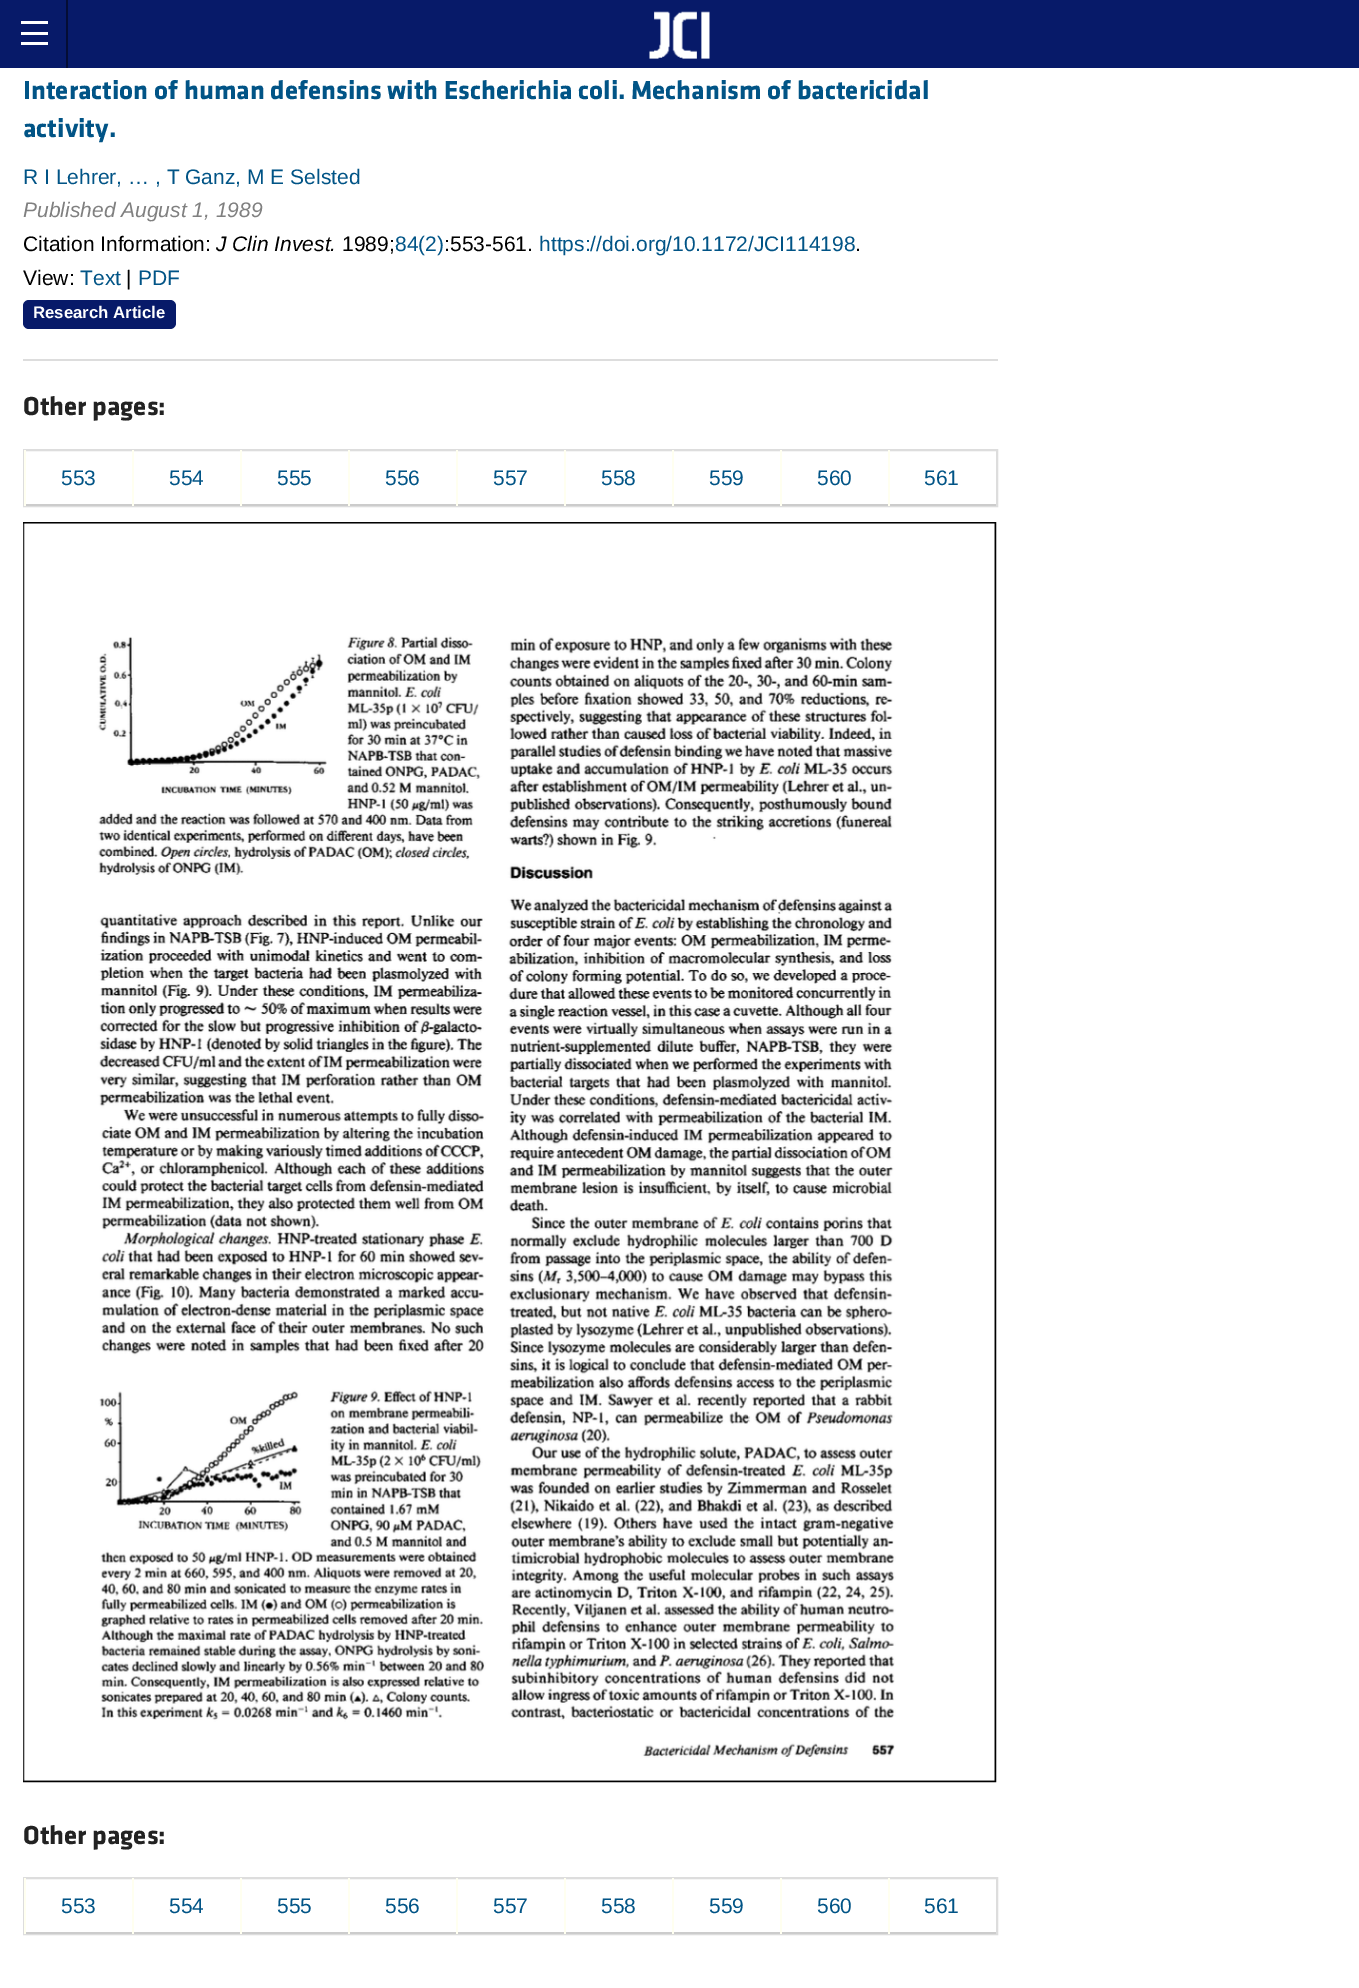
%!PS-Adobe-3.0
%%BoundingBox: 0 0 1359 1988
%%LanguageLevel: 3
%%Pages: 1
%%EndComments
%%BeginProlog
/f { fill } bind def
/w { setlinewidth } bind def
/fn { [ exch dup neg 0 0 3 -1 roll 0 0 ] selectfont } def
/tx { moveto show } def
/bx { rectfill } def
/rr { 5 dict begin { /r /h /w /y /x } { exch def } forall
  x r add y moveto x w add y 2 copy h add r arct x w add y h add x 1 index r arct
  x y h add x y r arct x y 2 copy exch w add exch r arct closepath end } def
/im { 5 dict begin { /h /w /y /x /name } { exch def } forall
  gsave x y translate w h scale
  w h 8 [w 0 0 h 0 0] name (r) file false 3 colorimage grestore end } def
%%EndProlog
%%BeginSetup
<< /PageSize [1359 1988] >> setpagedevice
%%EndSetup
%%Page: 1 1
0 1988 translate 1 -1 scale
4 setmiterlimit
1 setgray
0 0 1359 1988 bx
0.027 0.102 0.412 setrgbcolor
0 0 1359 68 bx
0.016 0.051 0.208 setrgbcolor
66 0 2 68 bx
1 setgray
21 42 27 3 bx
21 32 27 3 bx
21 21 27 3 bx
(image0.raw) 649 11 61 48 im
/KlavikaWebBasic-Bold 27 fn
0.004 0.329 0.525 setrgbcolor
(Interaction of human defensins with Escherichia coli. Mechanism of bactericidal) 23 99 tx
(activity.) 23 137 tx
/LiberationSans-Regular 21 fn
(R I Lehrer, … , T Ganz, M E Selsted) 23 184 tx
/LiberationSans-Italic 21 fn
0.502 setgray
(Published August 1, 1989) 23 217 tx
/LiberationSans-Regular 21 fn
0 setgray
(Citation Information:) 23 251 tx
/LiberationSans-Italic 21 fn
(J Clin Invest.) 216 251 tx
/LiberationSans-Regular 21 fn
(1989;) 342 251 tx
0.004 0.329 0.525 setrgbcolor
(84\(2\)) 395 251 tx
0 setgray
(:553-561.) 444 251 tx
0.004 0.329 0.525 setrgbcolor
(https://doi.org/10.1172/JCI114198) 539 251 tx
0 setgray
(.) 855 251 tx
(View:) 23 285 tx
0.004 0.329 0.525 setrgbcolor
(Text) 80 285 tx
0 setgray
(|) 126 285 tx
0.004 0.329 0.525 setrgbcolor
(PDF) 138 285 tx
0.027 0.102 0.412 setrgbcolor
23 300 153 29 6 rr f
/LiberationSans-Bold 16.75 fn
1 setgray
(Research Article) 33 318 tx
0.867 setgray
23 359 975 2 bx
/KlavikaWebBasic-Bold 27 fn
0.133 setgray
(Other pages:) 23 415 tx
0.867 setgray
2 w
24 450 973 56 rectstroke
0.8 setgray
24 504 972 2 bx
1 1 0.941 setrgbcolor
24 450 2 56 bx
/LiberationSans-Regular 21 fn
0.004 0.329 0.525 setrgbcolor
(553) 61 485 tx
1 1 0.941 setrgbcolor
132 450 2 56 bx
0.004 0.329 0.525 setrgbcolor
(554) 169 485 tx
1 1 0.941 setrgbcolor
240 450 2 56 bx
0.004 0.329 0.525 setrgbcolor
(555) 277 485 tx
1 1 0.941 setrgbcolor
348 450 2 56 bx
0.004 0.329 0.525 setrgbcolor
(556) 385 485 tx
1 1 0.941 setrgbcolor
456 450 2 56 bx
0.004 0.329 0.525 setrgbcolor
(557) 493 485 tx
1 1 0.941 setrgbcolor
564 450 2 56 bx
0.004 0.329 0.525 setrgbcolor
(558) 601 485 tx
1 1 0.941 setrgbcolor
672 450 2 56 bx
0.004 0.329 0.525 setrgbcolor
(559) 709 485 tx
1 1 0.941 setrgbcolor
780 450 2 56 bx
0.004 0.329 0.525 setrgbcolor
(560) 817 485 tx
1 1 0.941 setrgbcolor
888 450 2 56 bx
0.004 0.329 0.525 setrgbcolor
(561) 924 485 tx
0 setgray
24 523 971 1258 rectstroke
(image1.raw) 23 523 972 1258 im
/KlavikaWebBasic-Bold 27 fn
0.133 setgray
(Other pages:) 23 1844 tx
0.867 setgray
24 1878 973 56 rectstroke
0.8 setgray
24 1932 972 2 bx
1 1 0.941 setrgbcolor
24 1878 2 56 bx
/LiberationSans-Regular 21 fn
0.004 0.329 0.525 setrgbcolor
(553) 61 1913 tx
1 1 0.941 setrgbcolor
132 1878 2 56 bx
0.004 0.329 0.525 setrgbcolor
(554) 169 1913 tx
1 1 0.941 setrgbcolor
240 1878 2 56 bx
0.004 0.329 0.525 setrgbcolor
(555) 277 1913 tx
1 1 0.941 setrgbcolor
348 1878 2 56 bx
0.004 0.329 0.525 setrgbcolor
(556) 385 1913 tx
1 1 0.941 setrgbcolor
456 1878 2 56 bx
0.004 0.329 0.525 setrgbcolor
(557) 493 1913 tx
1 1 0.941 setrgbcolor
564 1878 2 56 bx
0.004 0.329 0.525 setrgbcolor
(558) 601 1913 tx
1 1 0.941 setrgbcolor
672 1878 2 56 bx
0.004 0.329 0.525 setrgbcolor
(559) 709 1913 tx
1 1 0.941 setrgbcolor
780 1878 2 56 bx
0.004 0.329 0.525 setrgbcolor
(560) 817 1913 tx
1 1 0.941 setrgbcolor
888 1878 2 56 bx
0.004 0.329 0.525 setrgbcolor
(561) 924 1913 tx
showpage
%%EOF
